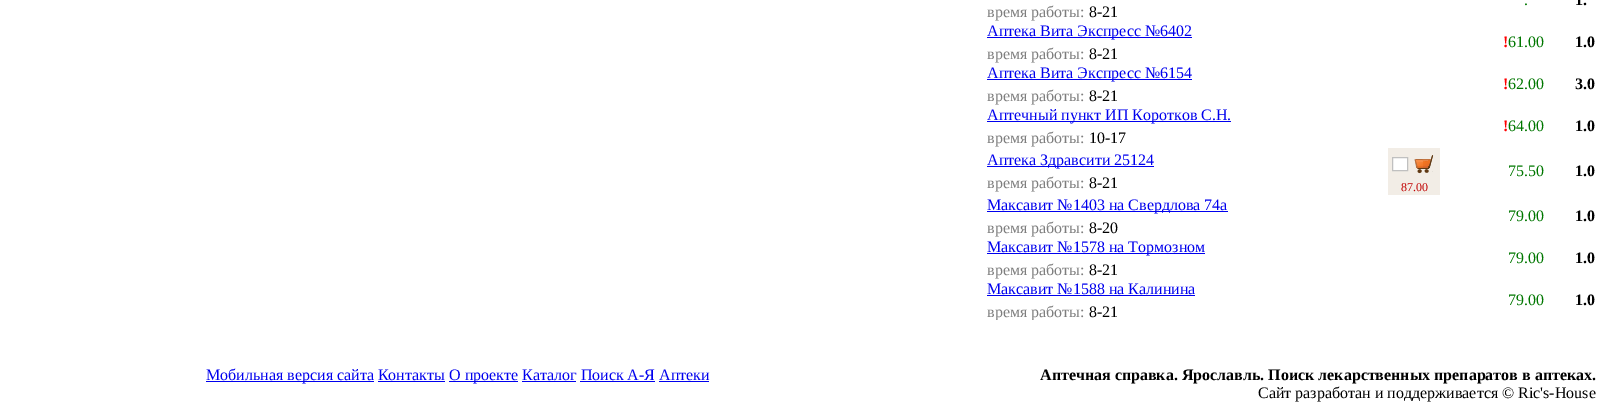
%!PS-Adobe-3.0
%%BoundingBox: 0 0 1610 412
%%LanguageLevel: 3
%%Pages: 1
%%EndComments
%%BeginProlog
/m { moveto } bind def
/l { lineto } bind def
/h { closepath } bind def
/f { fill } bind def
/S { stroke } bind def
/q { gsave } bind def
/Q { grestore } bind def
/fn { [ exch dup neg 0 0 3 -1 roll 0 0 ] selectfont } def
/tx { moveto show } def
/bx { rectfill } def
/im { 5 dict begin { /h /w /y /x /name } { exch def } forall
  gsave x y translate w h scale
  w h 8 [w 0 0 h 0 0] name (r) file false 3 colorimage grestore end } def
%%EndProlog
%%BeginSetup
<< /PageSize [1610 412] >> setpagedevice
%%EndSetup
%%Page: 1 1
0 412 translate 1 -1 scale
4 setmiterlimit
1 setgray
0 0 1610 412 bx
/LiberationSerif-Regular 16 fn
0 0.467 0 setrgbcolor
(.) 1524 5 tx
/LiberationSerif-Bold 16 fn
0 setgray
(1.) 1575 5 tx
/LiberationSerif-Regular 16 fn
0.494 setgray
(время работы:) 987 17 tx
0 setgray
(8-21) 1089 17 tx
0 0 0.933 setrgbcolor
987 37 205 1 bx
(Аптека Вита Экспресс №6402) 987 36 tx
0.494 setgray
(время работы:) 987 59 tx
0 setgray
(8-21) 1089 59 tx
/LiberationSerif-Bold 16 fn
1 0 0 setrgbcolor
(!) 1503 47 tx
/LiberationSerif-Regular 16 fn
0 0.467 0 setrgbcolor
(61.00) 1508 47 tx
/LiberationSerif-Bold 16 fn
0 setgray
(1.0) 1575 47 tx
0 0 0.933 setrgbcolor
987 79 205 1 bx
/LiberationSerif-Regular 16 fn
(Аптека Вита Экспресс №6154) 987 78 tx
0.494 setgray
(время работы:) 987 101 tx
0 setgray
(8-21) 1089 101 tx
/LiberationSerif-Bold 16 fn
1 0 0 setrgbcolor
(!) 1503 89 tx
/LiberationSerif-Regular 16 fn
0 0.467 0 setrgbcolor
(62.00) 1508 89 tx
/LiberationSerif-Bold 16 fn
0 setgray
(3.0) 1575 89 tx
0 0 0.933 setrgbcolor
987 121 244 1 bx
/LiberationSerif-Regular 16 fn
(Аптечный пункт ИП Коротков С.Н.) 987 120 tx
0.494 setgray
(время работы:) 987 143 tx
0 setgray
(10-17) 1089 143 tx
/LiberationSerif-Bold 16 fn
1 0 0 setrgbcolor
(!) 1503 131 tx
/LiberationSerif-Regular 16 fn
0 0.467 0 setrgbcolor
(64.00) 1508 131 tx
/LiberationSerif-Bold 16 fn
0 setgray
(1.0) 1575 131 tx
0 0 0.933 setrgbcolor
987 166 167 1 bx
/LiberationSerif-Regular 16 fn
(Аптека Здравсити 25124) 987 165 tx
0.494 setgray
(время работы:) 987 188 tx
0 setgray
(8-21) 1089 188 tx
0 0.467 0 setrgbcolor
(75.50) 1508 176 tx
/LiberationSerif-Bold 16 fn
0 setgray
(1.0) 1575 176 tx
0.949 0.929 0.902 setrgbcolor
1388 148 52 47 bx
1 setgray
1392.5 157.5 m 1407.5 157.5 l 1407.5 170.5 l 1392.5 170.5 l h q f Q
0.753 setgray
S
(image0.raw) 1414 155 20 19 im
/LiberationSerif-Regular 12 fn
0.757 0 0 setrgbcolor
(87.00) 1401 191 tx
0 0 0.933 setrgbcolor
987 211 241 1 bx
/LiberationSerif-Regular 16 fn
(Максавит №1403 на Свердлова 74а) 987 210 tx
0.494 setgray
(время работы:) 987 233 tx
0 setgray
(8-20) 1089 233 tx
0 0.467 0 setrgbcolor
(79.00) 1508 221 tx
/LiberationSerif-Bold 16 fn
0 setgray
(1.0) 1575 221 tx
0 0 0.933 setrgbcolor
987 253 218 1 bx
/LiberationSerif-Regular 16 fn
(Максавит №1578 на Тормозном) 987 252 tx
0.494 setgray
(время работы:) 987 275 tx
0 setgray
(8-21) 1089 275 tx
0 0.467 0 setrgbcolor
(79.00) 1508 263 tx
/LiberationSerif-Bold 16 fn
0 setgray
(1.0) 1575 263 tx
/LiberationSerif-Regular 16 fn
0 0 0.933 setrgbcolor
(Максавит №1588 на Калинина) 987 294 tx
987 295 208 1 bx
q
966 0 634 320 rectclip
0.494 setgray
(время работы:) 987 317 tx
Q
0 setgray
(8-21) 1089 317 tx
0 0.467 0 setrgbcolor
(79.00) 1508 305 tx
/LiberationSerif-Bold 16 fn
0 setgray
(1.0) 1575 305 tx
0 0 0.933 setrgbcolor
206 381 168 1 bx
/LiberationSerif-Regular 16 fn
(Мобильная версия сайта Контакты) 206 380 tx
449 381 69 1 bx
(О проекте Каталог Поиск А-Я Аптеки) 449 380 tx
378 381 67 1 bx
522 381 54 1 bx
580 381 75 1 bx
659 381 50 1 bx
/LiberationSerif-Bold 16 fn
0 setgray
(Аптечная справка. Ярославль. Поиск лекарственных препаратов в аптеках.) 1040 380 tx
/LiberationSerif-Regular 16 fn
(Сайт разработан и поддерживается © Ric's-House) 1258 398 tx
showpage
%%EOF
